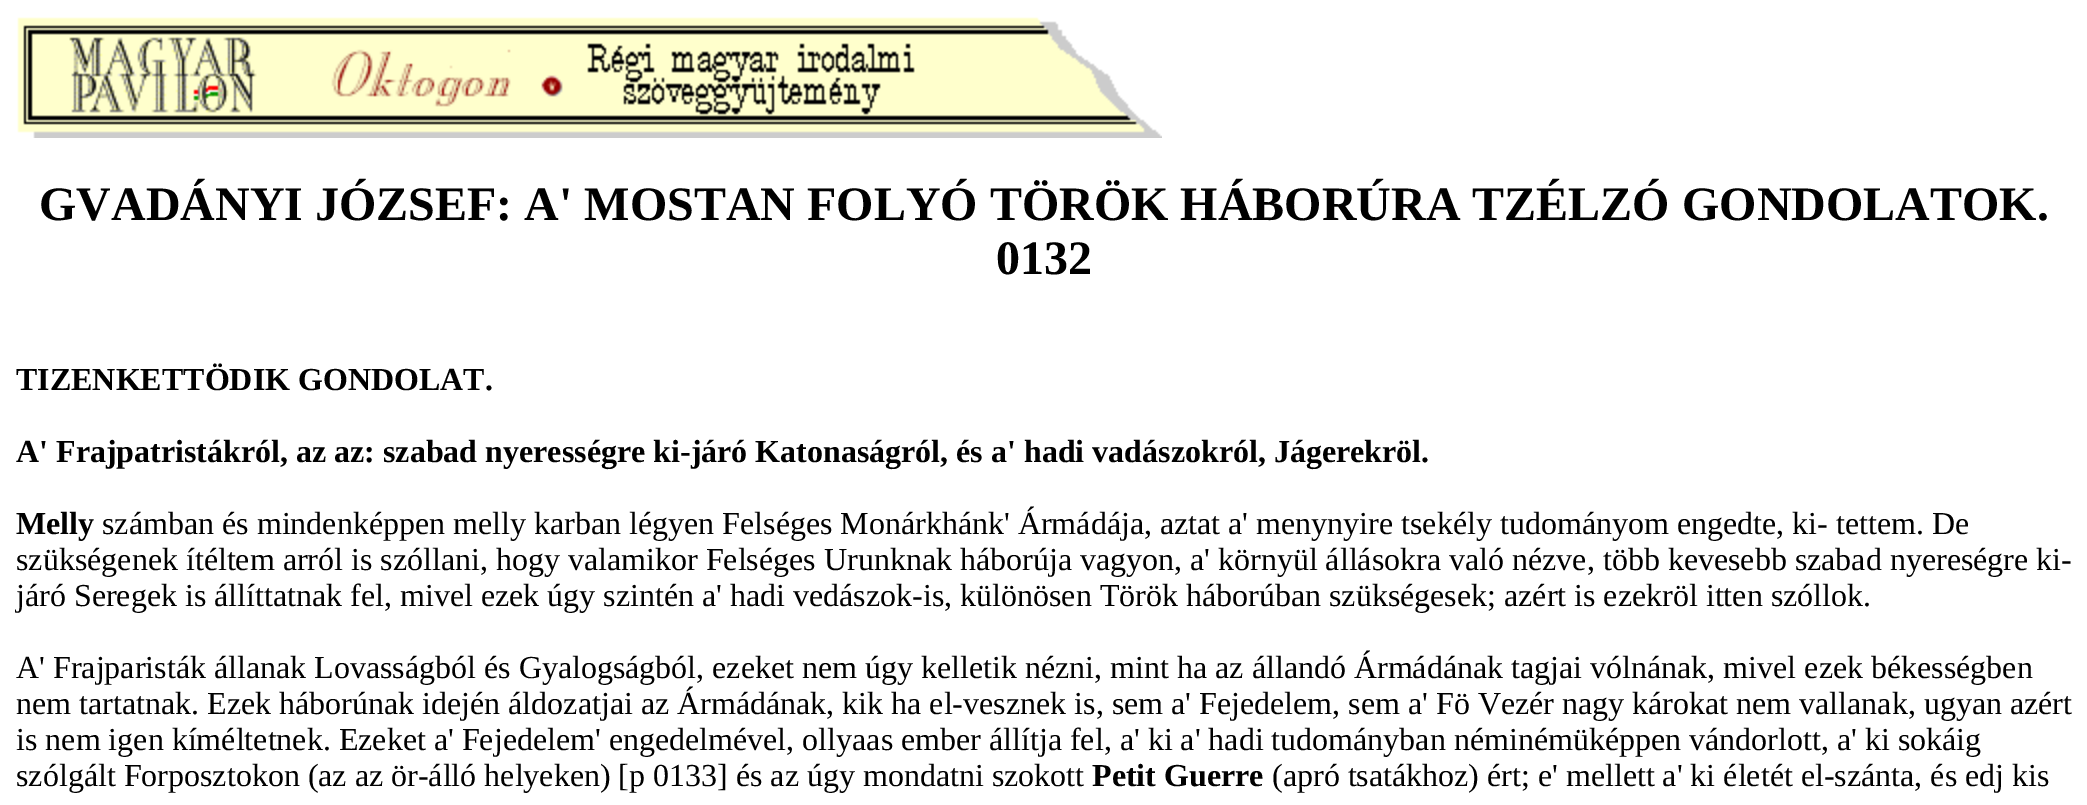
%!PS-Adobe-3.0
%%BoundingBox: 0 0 2087 805
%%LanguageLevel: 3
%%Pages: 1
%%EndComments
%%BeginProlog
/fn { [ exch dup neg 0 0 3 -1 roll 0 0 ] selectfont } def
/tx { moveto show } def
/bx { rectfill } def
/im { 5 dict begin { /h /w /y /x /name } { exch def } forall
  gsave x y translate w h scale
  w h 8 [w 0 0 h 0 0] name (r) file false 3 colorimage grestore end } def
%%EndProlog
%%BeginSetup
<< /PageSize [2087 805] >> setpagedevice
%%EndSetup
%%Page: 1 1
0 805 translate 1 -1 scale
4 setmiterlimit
1 setgray
0 0 2087 805 bx
(image0.raw) 17 17 1145 121 im
/LiberationSerif-Bold 48 fn
0 setgray
(GVADÁNYI JÓZSEF: A' MOSTAN FOLYÓ TÖRÖK HÁBORÚRA TZÉLZÓ GONDOLATOK.) 39 220 tx
(0132) 996 274 tx
/LiberationSerif-Bold 32 fn
(TIZENKETTÖDIK GONDOLAT.) 16 390 tx
(A' Frajpatristákról, az az: szabad nyerességre ki-járó Katonaságról, és a' hadi vadászokról, Jágerekröl.) 16 462 tx
(Melly) 16 534 tx
/LiberationSerif-Regular 32 fn
(számban és mindenképpen melly karban légyen Felséges Monárkhánk' Ármádája, aztat a' menynyire tsekély tudományom engedte, ki- tettem. De) 102 534 tx
(szükségenek ítéltem arról is szóllani, hogy valamikor Felséges Urunknak háborúja vagyon, a' környül állásokra való nézve, több kevesebb szabad nyereségre ki-) 16 570 tx
(járó Seregek is állíttatnak fel, mivel ezek úgy szintén a' hadi vedászok-is, különösen Török háborúban szükségesek; azért is ezekröl itten szóllok.) 16 606 tx
(A' Frajparisták állanak Lovasságból és Gyalogságból, ezeket nem úgy kelletik nézni, mint ha az állandó Ármádának tagjai vólnának, mivel ezek békességben) 16 678 tx
(nem tartatnak. Ezek háborúnak idején áldozatjai az Ármádának, kik ha el-vesznek is, sem a' Fejedelem, sem a' Fö Vezér nagy károkat nem vallanak, ugyan azért) 16 714 tx
(is nem igen kíméltetnek. Ezeket a' Fejedelem' engedelmével, ollyaas ember állítja fel, a' ki a' hadi tudományban néminémüképpen vándorlott, a' ki sokáig) 16 750 tx
(szólgált Forposztokon \(az az ör-álló helyeken\) [p 0133] és az úgy mondatni szokott) 16 786 tx
/LiberationSerif-Bold 32 fn
(Petit Guerre) 1092 786 tx
/LiberationSerif-Regular 32 fn
(\(apró tsatákhoz\) ért; e' mellett a' ki életét el-szánta, és edj kis) 1272 786 tx
showpage
%%EOF
